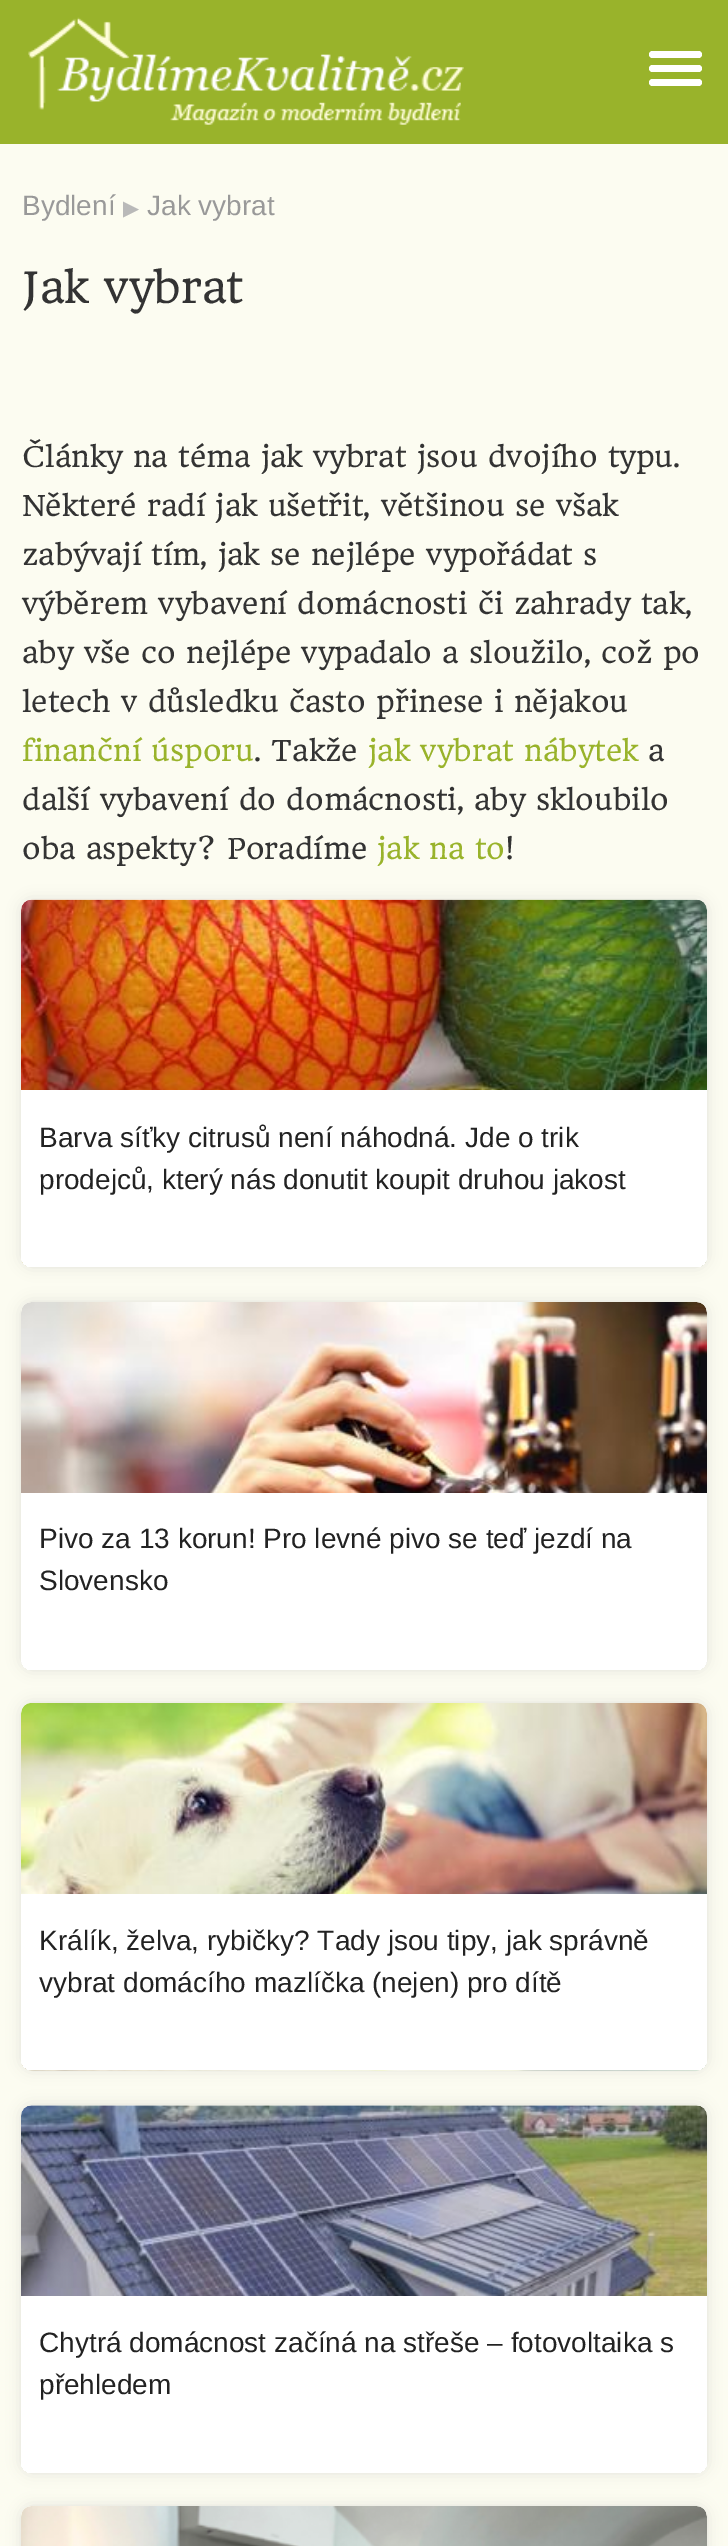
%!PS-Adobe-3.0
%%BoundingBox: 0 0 728 2546
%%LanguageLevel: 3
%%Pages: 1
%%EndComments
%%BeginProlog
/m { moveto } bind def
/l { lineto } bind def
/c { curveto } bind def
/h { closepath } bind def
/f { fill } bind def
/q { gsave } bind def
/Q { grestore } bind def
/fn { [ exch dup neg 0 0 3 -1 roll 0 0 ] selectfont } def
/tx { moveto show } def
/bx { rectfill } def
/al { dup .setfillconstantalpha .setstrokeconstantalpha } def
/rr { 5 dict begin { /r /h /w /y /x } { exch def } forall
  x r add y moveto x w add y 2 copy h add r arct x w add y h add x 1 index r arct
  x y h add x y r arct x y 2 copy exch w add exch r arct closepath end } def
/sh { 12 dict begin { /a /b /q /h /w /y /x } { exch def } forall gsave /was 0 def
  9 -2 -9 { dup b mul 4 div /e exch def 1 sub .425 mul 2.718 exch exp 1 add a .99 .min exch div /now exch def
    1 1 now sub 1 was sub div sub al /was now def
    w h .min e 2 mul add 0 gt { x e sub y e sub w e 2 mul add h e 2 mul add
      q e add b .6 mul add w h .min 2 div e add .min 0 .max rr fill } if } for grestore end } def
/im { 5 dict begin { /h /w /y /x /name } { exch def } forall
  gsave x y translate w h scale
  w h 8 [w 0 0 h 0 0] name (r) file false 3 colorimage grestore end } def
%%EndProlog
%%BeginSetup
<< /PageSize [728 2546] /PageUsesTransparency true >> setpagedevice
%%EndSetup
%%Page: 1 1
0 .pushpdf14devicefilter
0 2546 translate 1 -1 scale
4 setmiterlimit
0.988 0.988 0.945 setrgbcolor
0 0 728 2546 bx
0.6 0.702 0.169 setrgbcolor
0 0 728 144 bx
(image0.raw) 28 17 436 108 im
1 setgray
649 65 53 7 3.5 rr f
649 51 53 7 3.5 rr f
649 79 53 7 3.5 rr f
/LiberationSans-Regular 28 fn
0.6 setgray
(Bydlení) 22 215 tx
/DejaVuSans-Regular 21 fn
0.725 setgray
(▶) 123 215 tx
/LiberationSans-Regular 28 fn
0.6 setgray
(Jak vybrat) 147 215 tx
/HeadlandOne-Regular 42 fn
0.2 setgray
(Jak vybrat) 22 303 tx
/HeadlandOne-Regular 28 fn
(Články na téma jak vybrat jsou dvojího typu.) 22 467 tx
(Některé radí jak ušetřit, většinou se však) 22 516 tx
(zabývají tím, jak se nejlépe vypořádat s) 22 565 tx
(výběrem vybavení domácnosti či zahrady tak,) 22 614 tx
(aby vše co nejlépe vypadalo a sloužilo, což po) 22 663 tx
(letech v důsledku často přinese i nějakou) 22 712 tx
0.6 0.702 0.169 setrgbcolor
(finanční úsporu) 22 761 tx
0.2 setgray
(. Takže) 254 761 tx
0.6 0.702 0.169 setrgbcolor
(jak vybrat nábytek) 368 761 tx
0.2 setgray
(a) 648 761 tx
(další vybavení do domácnosti, aby skloubilo) 22 810 tx
(oba aspekty? Poradíme) 22 859 tx
0.6 0.702 0.169 setrgbcolor
(jak na to) 377 859 tx
0.2 setgray
(!) 505 859 tx
0.784 setgray
21 900 686 367 11 7 0.55 sh
(image1.raw) 21 899 686 368 im
q
21 900 686 367 11 rr clip newpath
1 setgray
21 1090 m 707 1090 l 707 1258 l 707 1264 702 1269 696 1269 c 32 1269 l 26 1269 21 1264 21 1258 c h f
Q
/LiberationSans-Regular 28 fn
0.133 setgray
(Barva síťky citrusů není náhodná. Jde o trik) 39 1147 tx
(prodejců, který nás donutit koupit druhou jakost) 39 1189 tx
0.784 setgray
21 1302 686 368 11 7 0.55 sh
(image2.raw) 21 1302 686 368 im
q
21 1302 686 368 11 rr clip newpath
1 setgray
21 1493 m 707 1493 l 707 1660 l 707 1666 702 1671 696 1671 c 32 1671 l 26 1671 21 1666 21 1660 c h f
Q
0.133 setgray
(Pivo za 13 korun! Pro levné pivo se teď jezdí na) 39 1548 tx
(Slovensko) 39 1590 tx
0.784 setgray
21 1703 686 367 11 7 0.55 sh
(image3.raw) 21 1703 686 368 im
q
21 1703 686 367 11 rr clip newpath
1 setgray
21 1894 m 707 1894 l 707 2061 l 707 2067 702 2072 696 2072 c 32 2072 l 26 2072 21 2067 21 2061 c h f
Q
0.133 setgray
(Králík, želva, rybičky? Tady jsou tipy, jak správně) 39 1950 tx
(vybrat domácího mazlíčka \(nejen\) pro dítě) 39 1992 tx
0.784 setgray
21 2105 686 368 11 7 0.55 sh
(image4.raw) 21 2105 686 368 im
q
21 2105 686 368 11 rr clip newpath
1 setgray
21 2296 m 707 2296 l 707 2464 l 707 2470 702 2475 696 2475 c 32 2475 l 26 2475 21 2470 21 2464 c h f
Q
0.133 setgray
(Chytrá domácnost začíná na střeše – fotovoltaika s) 39 2352 tx
(přehledem) 39 2394 tx
0.784 setgray
21 2506 686 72 11 7 0.55 sh
(image5.raw) 21 2506 686 40 im
.poppdf14devicefilter showpage
%%EOF
